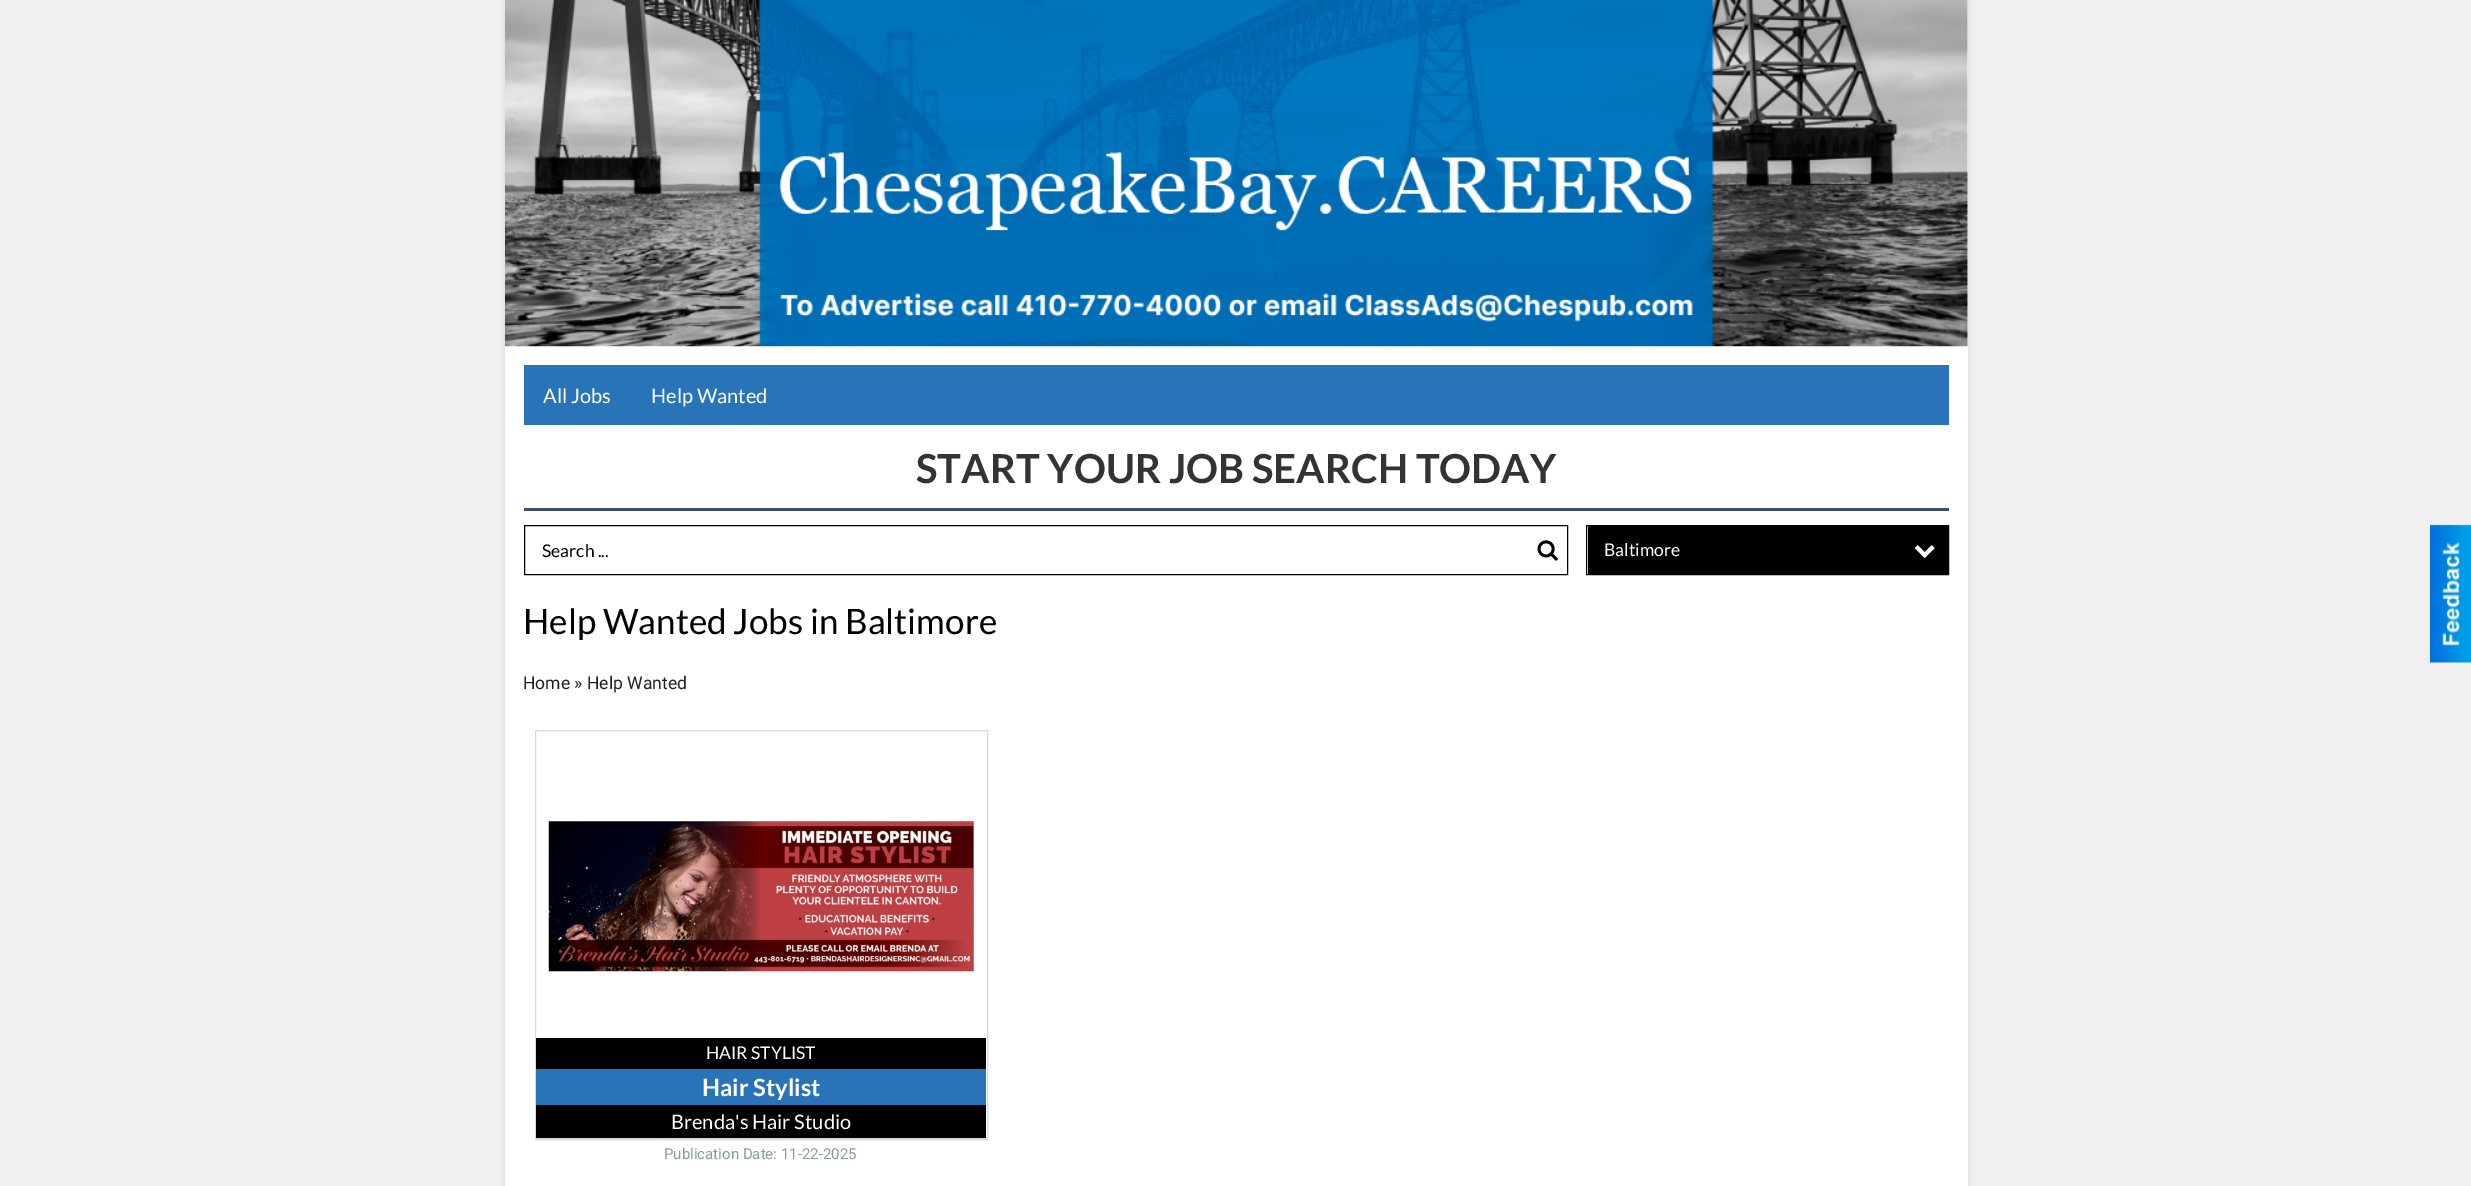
%!PS-Adobe-3.0
%%BoundingBox: 0 0 2471 1186
%%LanguageLevel: 3
%%Pages: 1
%%EndComments
%%BeginProlog
/fn { [ exch dup neg 0 0 3 -1 roll 0 0 ] selectfont } def
/tx { moveto show } def
/bx { rectfill } def
/al { dup .setfillconstantalpha .setstrokeconstantalpha } def
/rr { 5 dict begin { /r /h /w /y /x } { exch def } forall
  x r add y moveto x w add y 2 copy h add r arct x w add y h add x 1 index r arct
  x y h add x y r arct x y 2 copy exch w add exch r arct closepath end } def
/sh { 12 dict begin { /a /b /q /h /w /y /x } { exch def } forall gsave /was 0 def
  9 -2 -9 { dup b mul 4 div /e exch def 1 sub .425 mul 2.718 exch exp 1 add a .99 .min exch div /now exch def
    1 1 now sub 1 was sub div sub al /was now def
    w h .min e 2 mul add 0 gt { x e sub y e sub w e 2 mul add h e 2 mul add
      q e add b .6 mul add w h .min 2 div e add .min 0 .max rr fill } if } for grestore end } def
/im { 5 dict begin { /h /w /y /x /name } { exch def } forall
  gsave x y translate w h scale
  w h 8 [w 0 0 h 0 0] name (r) file false 3 colorimage grestore end } def
%%EndProlog
%%BeginSetup
<< /PageSize [2471 1186] /PageUsesTransparency true >> setpagedevice
%%EndSetup
%%Page: 1 1
0 .pushpdf14devicefilter
0 1186 translate 1 -1 scale
4 setmiterlimit
0.941 setgray
0 0 2471 1186 bx
0 setgray
505 0 1463 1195 0 3 0.1 sh
1 setgray
505 0 1463 1186 bx
(image0.raw) 505 0 1463 347 im
0.161 0.455 0.722 setrgbcolor
524 365 1425 60 bx
/Lato-Regular 20 fn
1 setgray
(All Jobs) 543 403 tx
(Help Wanted) 651 403 tx
0.22 0.318 0.447 setrgbcolor
524 508 1425 3 bx
/Lato-Bold 40 fn
0.2 setgray
(START YOUR JOB SEARCH TODAY) 916 483 tx
0 setgray
524.5 525.5 1043 49 rectstroke
/Lato-Regular 17.5 fn
(Search ...) 542 557 tx
(image1.raw) 1537 540 21 21 im
1586.5 525.5 362 49 rectstroke
1588 526 360 48 bx
1 setgray
(Baltimore) 1604 556 tx
(image2.raw) 1914 545 21 13 im
/Lato-Regular 35 fn
0 setgray
(Help Wanted Jobs in Baltimore) 523 634 tx
/Roboto-Regular 17.5 fn
0.133 setgray
(Home » Help Wanted) 523 689 tx
0.851 setgray
535.5 730.5 452 409 rectstroke
536 1138 450 1 bx
(image3.raw) 548 821 426 151 im
0 setgray
536 1038 450 100 bx
/Lato-Regular 17.5 fn
1 setgray
(HAIR STYLIST) 706 1059 tx
0.161 0.455 0.722 setrgbcolor
536 1069 450 36 bx
/Lato-Bold 23.75 fn
1 setgray
(Hair Stylist) 702 1096 tx
/Lato-Regular 20 fn
(Brenda's Hair Studio) 671 1129 tx
/Roboto-Regular 15 fn
0.533 0.6 0.627 setrgbcolor
(Publication Date: 11-22-2025) 664 1159 tx
(image4.raw) 2430 524 41 139 im
.poppdf14devicefilter showpage
%%EOF
